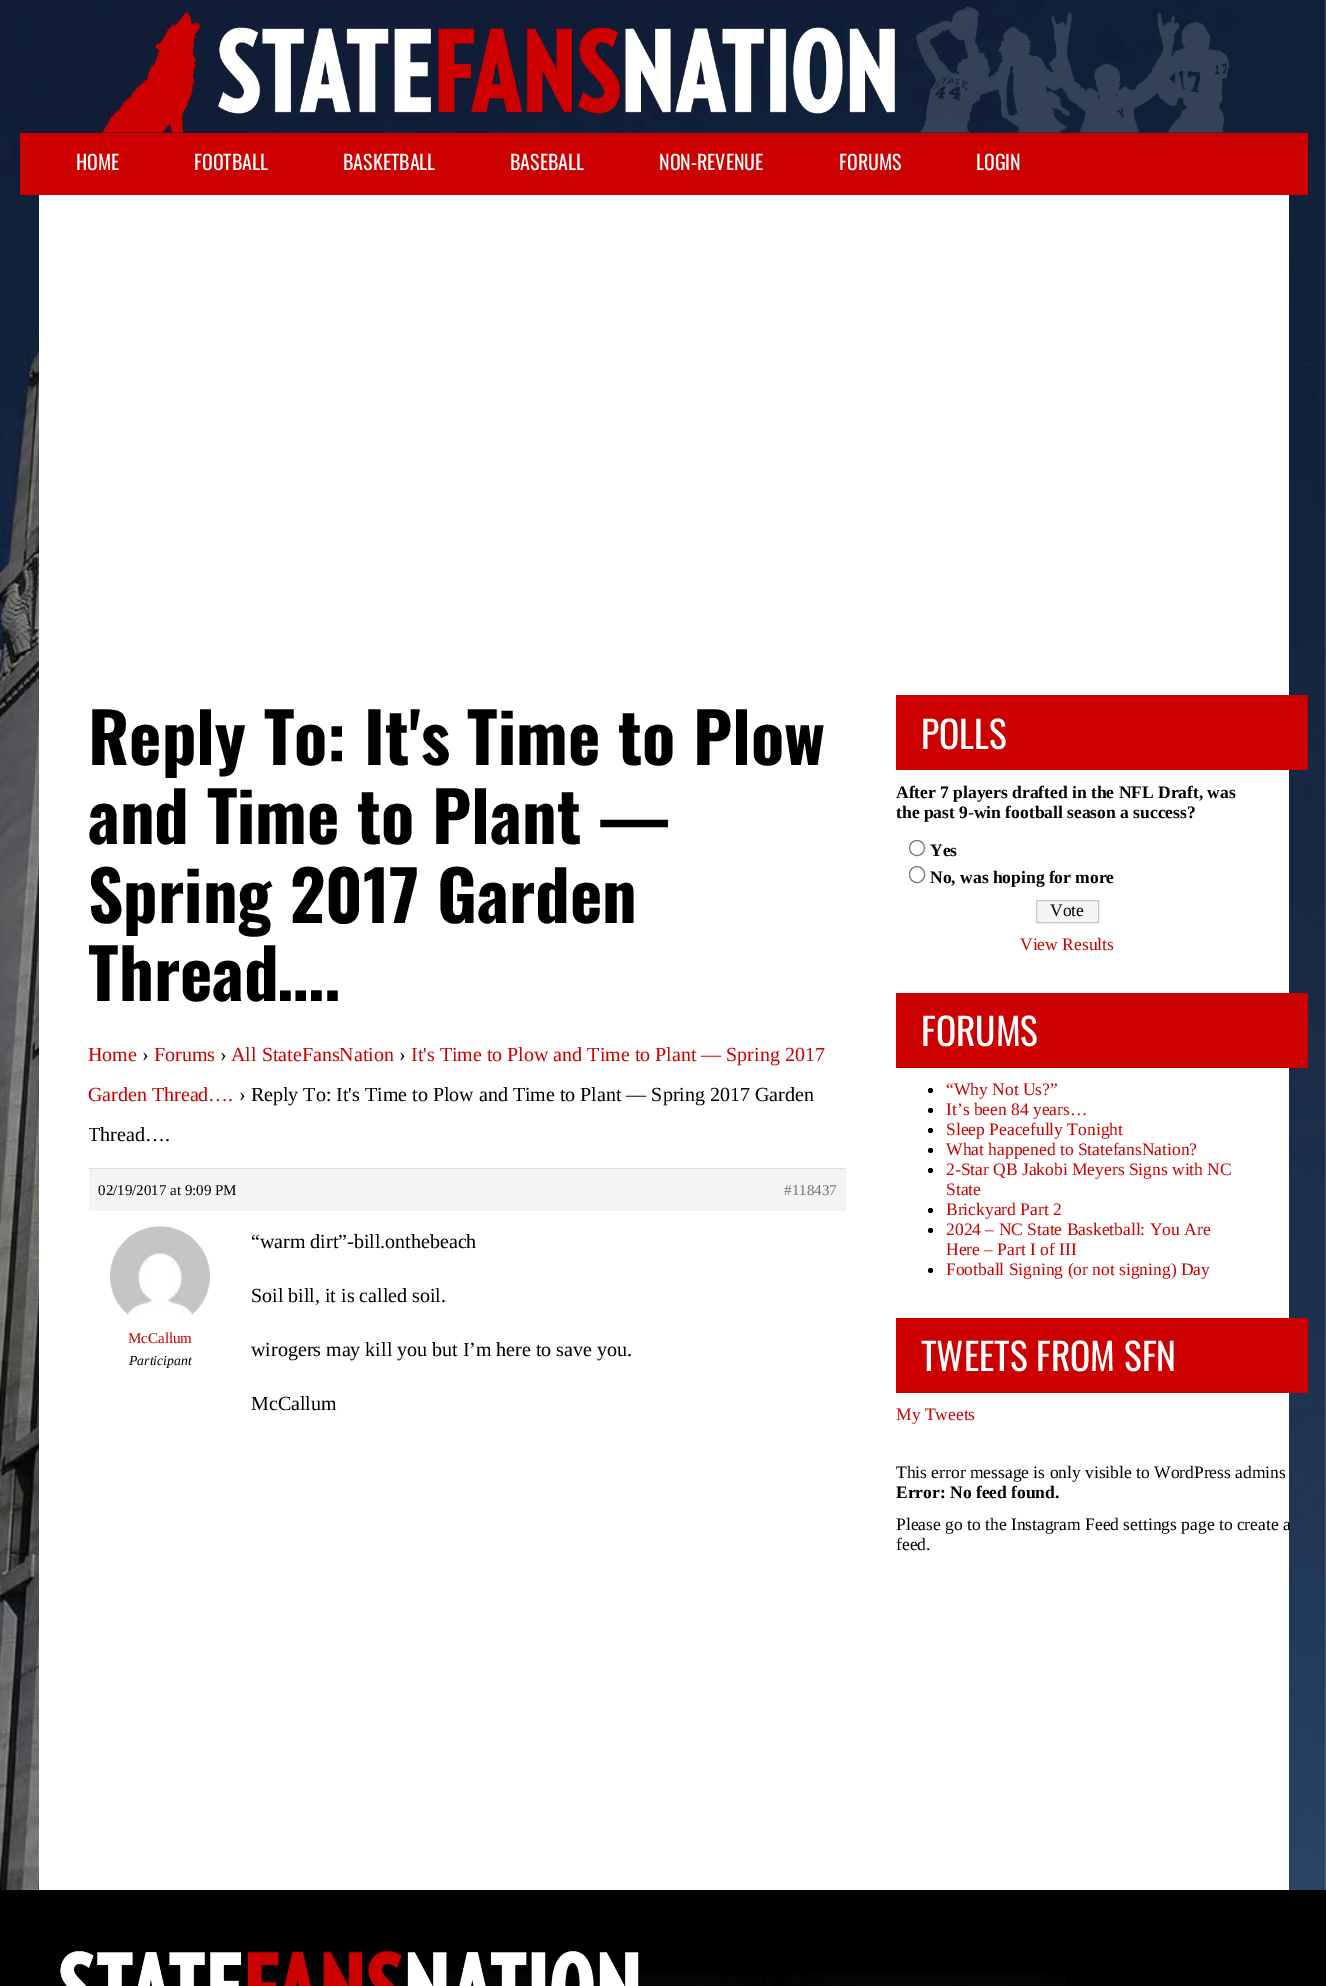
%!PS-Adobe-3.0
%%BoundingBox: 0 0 1326 1986
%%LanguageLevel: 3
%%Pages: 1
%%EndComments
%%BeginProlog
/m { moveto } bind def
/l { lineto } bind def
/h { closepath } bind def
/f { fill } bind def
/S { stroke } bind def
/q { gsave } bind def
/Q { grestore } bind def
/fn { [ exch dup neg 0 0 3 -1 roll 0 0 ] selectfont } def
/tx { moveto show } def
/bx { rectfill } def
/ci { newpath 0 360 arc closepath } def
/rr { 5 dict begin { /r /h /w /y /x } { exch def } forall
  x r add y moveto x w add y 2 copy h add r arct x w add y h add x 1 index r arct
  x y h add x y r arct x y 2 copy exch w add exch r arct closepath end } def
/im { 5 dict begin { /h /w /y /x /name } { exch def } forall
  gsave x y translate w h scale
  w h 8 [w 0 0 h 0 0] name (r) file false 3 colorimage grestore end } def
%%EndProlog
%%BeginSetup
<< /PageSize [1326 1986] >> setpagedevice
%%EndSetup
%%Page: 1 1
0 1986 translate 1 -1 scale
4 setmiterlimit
1 setgray
0 0 1326 1986 bx
(image0.raw) 0 0 1326 1890 im
(image1.raw) 102 7 1127 126 im
0.8 0 0 setrgbcolor
20 133 1288 62 bx
/Oswald-Regular 20 fn
1 setgray
(HOME) 76 170 tx
(FOOTBALL) 194 170 tx
(BASKETBALL) 343 170 tx
(BASEBALL) 510 170 tx
(NON-REVENUE) 659 170 tx
(FORUMS) 839 170 tx
(LOGIN) 976 170 tx
39 195 1250 1695 bx
/Oswald-Bold 68.75 fn
0 setgray
(Reply To: It's Time to Plow) 88 765 tx
(and Time to Plant —) 88 844 tx
(Spring 2017 Garden) 88 923 tx
q
89 658 757 825 rectclip
(Thread….) 88 1001 tx
Q
/LiberationSerif-Regular 20 fn
0.8 0 0 setrgbcolor
(Home) 88 1061 tx
0 setgray
(›) 142 1061 tx
0.8 0 0 setrgbcolor
(Forums) 154 1061 tx
0 setgray
(›) 220 1061 tx
0.8 0 0 setrgbcolor
(All StateFansNation) 231 1061 tx
0 setgray
(›) 399 1061 tx
0.8 0 0 setrgbcolor
(It's Time to Plow and Time to Plant — Spring 2017) 411 1061 tx
(Garden Thread….) 88 1101 tx
0 setgray
(› Reply To: It's Time to Plow and Time to Plant — Spring 2017 Garden) 239 1101 tx
q
89 1035 757 423 rectclip
(Thread….) 88 1141 tx
Q
0.957 setgray
89 1169 757 42 bx
0.867 setgray
89 1168 757 1 bx
/LiberationSerif-Regular 15 fn
0 setgray
(02/19/2017 at 9:09 PM) 98 1195 tx
0.439 setgray
(#118437) 784 1195 tx
(image2.raw) 110 1226 100 89 im
0.8 0 0 setrgbcolor
(McCallum) 128 1343 tx
/LiberationSerif-Italic 13.75 fn
0 setgray
(Participant) 129 1365 tx
/LiberationSerif-Regular 20 fn
(“warm dirt”-bill.onthebeach) 251 1248 tx
(Soil bill, it is called soil.) 251 1302 tx
(wirogers may kill you but I’m here to save you.) 251 1356 tx
(McCallum) 251 1410 tx
0.8 0 0 setrgbcolor
896 695 412 75 bx
/Oswald-Regular 37.5 fn
1 setgray
(POLLS) 921 749 tx
/LiberationSerif-Bold 17.5 fn
0 setgray
(After 7 players drafted in the NFL Draft, was) 896 798 tx
(the past 9-win football season a success?) 896 818 tx
0.463 setgray
917 848 7.5 ci S
0 setgray
(Yes) 930 856 tx
0.463 setgray
909.5 866.5 15 16 7.5 rr S
0 setgray
(No, was hoping for more) 930 883 tx
0.953 0.965 0.973 setrgbcolor
1036.5 900.5 m 1098.5 900.5 l 1098.5 922.5 l 1036.5 922.5 l h q f Q
0.784 setgray
S
/LiberationSerif-Regular 17.5 fn
0 setgray
(Vote) 1050 916 tx
0.8 0 0 setrgbcolor
(View Results) 1020 950 tx
896 993 412 75 bx
/Oswald-Regular 37.5 fn
1 setgray
(FORUMS) 921 1046 tx
0 setgray
930.5 1090.5 2.5 ci f
/LiberationSerif-Regular 17.5 fn
0.8 0 0 setrgbcolor
(“Why Not Us?”) 946 1095 tx
0 setgray
930.5 1110.5 2.5 ci f
0.8 0 0 setrgbcolor
(It’s been 84 years…) 946 1115 tx
0 setgray
930.5 1130.5 2.5 ci f
0.8 0 0 setrgbcolor
(Sleep Peacefully Tonight) 946 1135 tx
0 setgray
930.5 1150.5 2.5 ci f
0.8 0 0 setrgbcolor
(What happened to StatefansNation?) 946 1155 tx
0 setgray
930.5 1170.5 2.5 ci f
0.8 0 0 setrgbcolor
(2-Star QB Jakobi Meyers Signs with NC) 946 1175 tx
(State) 946 1195 tx
0 setgray
930.5 1210.5 2.5 ci f
0.8 0 0 setrgbcolor
(Brickyard Part 2) 946 1215 tx
0 setgray
930.5 1230.5 2.5 ci f
0.8 0 0 setrgbcolor
(2024 – NC State Basketball: You Are) 946 1235 tx
(Here – Part I of III) 946 1255 tx
0 setgray
930.5 1270.5 2.5 ci f
0.8 0 0 setrgbcolor
(Football Signing \(or not signing\) Day) 946 1275 tx
896 1318 412 75 bx
/Oswald-Regular 37.5 fn
1 setgray
(TWEETS FROM SFN) 921 1371 tx
/LiberationSerif-Regular 17.5 fn
0.8 0 0 setrgbcolor
(My Tweets) 896 1420 tx
0 setgray
(This error message is only visible to WordPress admins) 896 1478 tx
/LiberationSerif-Bold 17.5 fn
(Error: No feed found.) 896 1498 tx
/LiberationSerif-Regular 17.5 fn
(Please go to the Instagram Feed settings page to create a) 896 1530 tx
(feed.) 896 1550 tx
0 1890 1326 96 bx
(image3.raw) 229 1974 837 12 im
(image4.raw) 60 1951 579 35 im
showpage
%%EOF
